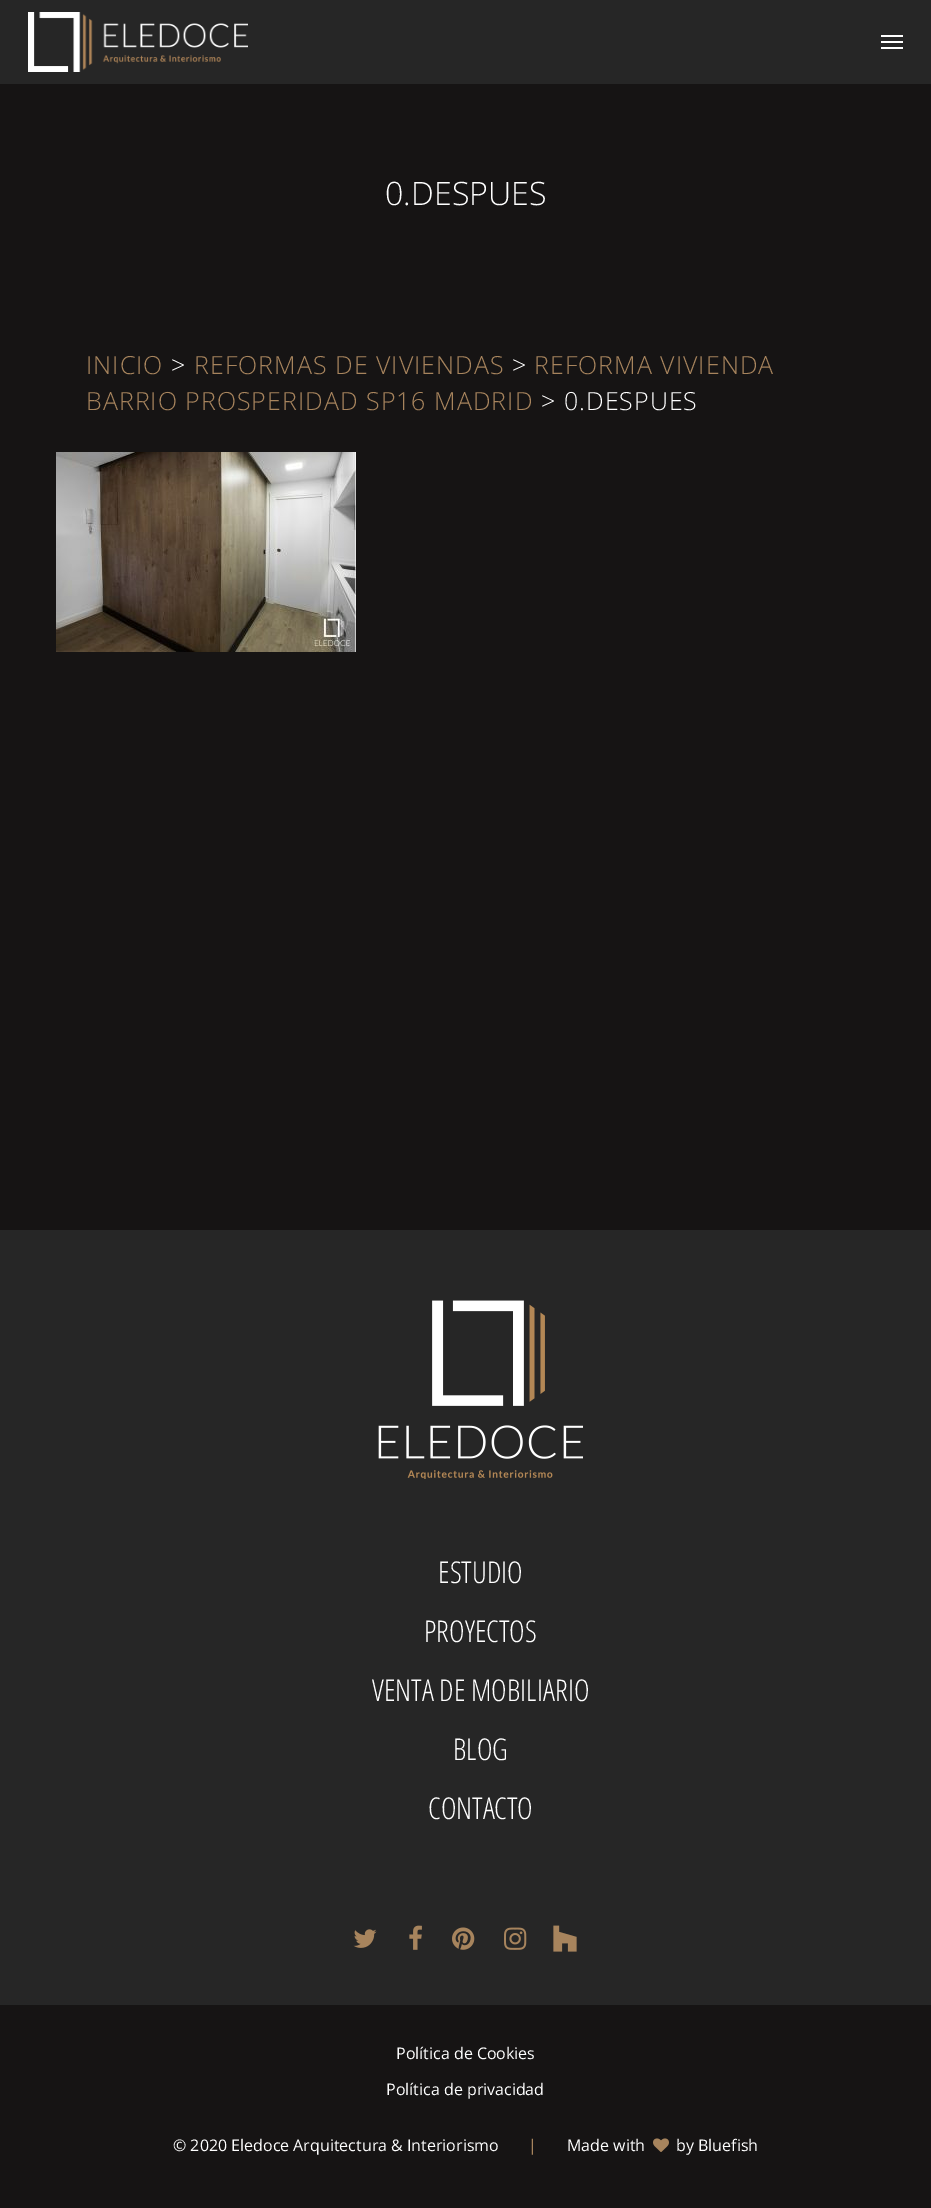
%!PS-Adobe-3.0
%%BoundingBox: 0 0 931 2208
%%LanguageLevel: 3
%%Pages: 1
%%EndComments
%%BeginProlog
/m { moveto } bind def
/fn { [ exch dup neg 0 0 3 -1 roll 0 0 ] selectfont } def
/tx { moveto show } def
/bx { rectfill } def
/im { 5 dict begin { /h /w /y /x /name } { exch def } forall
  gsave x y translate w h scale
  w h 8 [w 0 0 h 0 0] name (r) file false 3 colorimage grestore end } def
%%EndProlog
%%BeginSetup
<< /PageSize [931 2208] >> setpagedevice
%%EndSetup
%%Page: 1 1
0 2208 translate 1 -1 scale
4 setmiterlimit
0.149 setgray
0 0 931 2208 bx
(image0.raw) 28 12 220 60 im
1 setgray
881 35 22 2 bx
881 47 22 2 bx
881 41 22 2 bx
0.086 0.078 0.078 setrgbcolor
0 84 931 1146 bx
/OpenSans-Light 32.25 fn
1 setgray
(0.DESPUES) 385 205 tx
/OpenSans-Light 25 fn
0.655 0.518 0.365 setrgbcolor
86 374 m 1 0 (INICIO) ashow
1 setgray
171 374 m 1 0 (>) ashow
0.655 0.518 0.365 setrgbcolor
194 374 m 1 0 (REFORMAS DE VIVIENDAS) ashow
1 setgray
512 374 m 1 0 (>) ashow
0.655 0.518 0.365 setrgbcolor
534 374 m 1 0 (REFORMA VIVIENDA) ashow
86 410 m 1 0 (BARRIO PROSPERIDAD SP16 MADRID) ashow
1 setgray
541 410 m 1 0 (> 0.DESPUES) ashow
(image1.raw) 56 452 300 200 im
(image2.raw) 378 1300 205 179 im
/OpenSansCondensed-Light 30 fn
(ESTUDIO) 438 1583 tx
(PROYECTOS) 424 1642 tx
(VENTA DE MOBILIARIO) 372 1701 tx
(BLOG) 453 1760 tx
(CONTACTO) 428 1819 tx
0.086 0.078 0.078 setrgbcolor
0 2005 931 203 bx
(image3.raw) 353 1929 24 19 im
(image4.raw) 409 1925 13 25 im
(image5.raw) 452 1927 23 23 im
(image6.raw) 504 1927 23 23 im
(image7.raw) 553 1925 24 27 im
/OpenSans-Regular 16 fn
1 setgray
(Política de Cookies) 396 2059 tx
(Política de privacidad) 386 2095 tx
(© 2020 Eledoce Arquitectura & Interiorismo) 173 2151 tx
0.655 0.518 0.365 setrgbcolor
(|) 528 2151 tx
1 setgray
(Made with) 567 2151 tx
(image8.raw) 653 2138 16 14 im
(by Bluefish) 676 2151 tx
showpage
%%EOF
